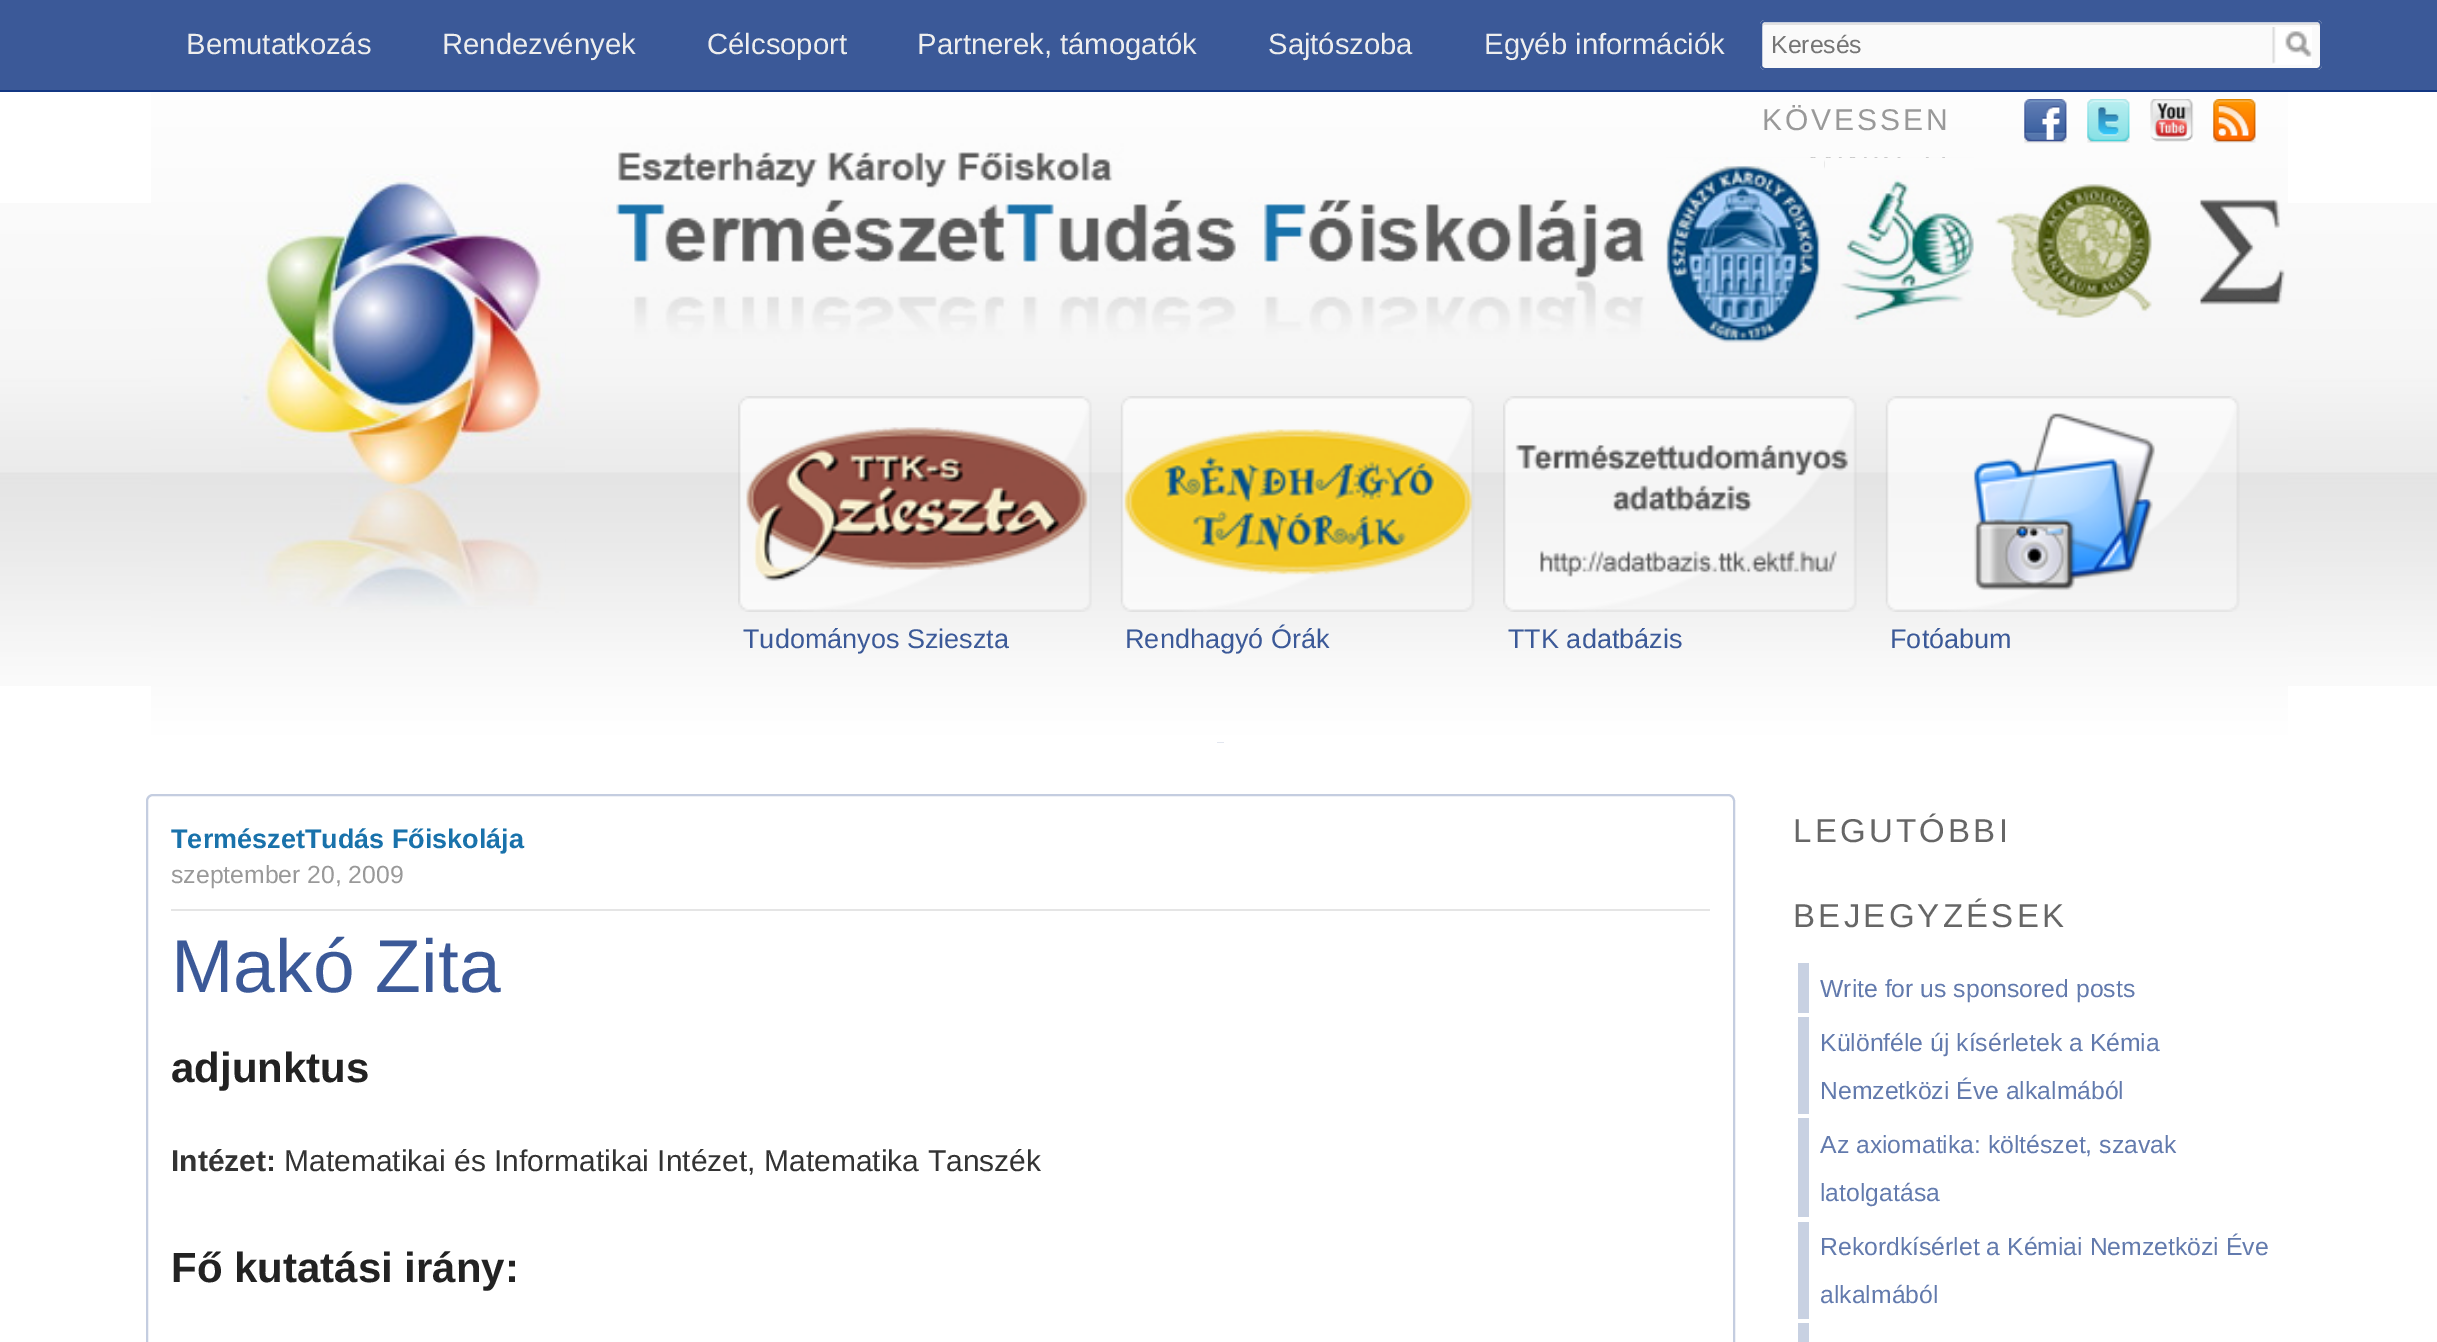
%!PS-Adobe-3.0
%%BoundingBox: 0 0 2437 1342
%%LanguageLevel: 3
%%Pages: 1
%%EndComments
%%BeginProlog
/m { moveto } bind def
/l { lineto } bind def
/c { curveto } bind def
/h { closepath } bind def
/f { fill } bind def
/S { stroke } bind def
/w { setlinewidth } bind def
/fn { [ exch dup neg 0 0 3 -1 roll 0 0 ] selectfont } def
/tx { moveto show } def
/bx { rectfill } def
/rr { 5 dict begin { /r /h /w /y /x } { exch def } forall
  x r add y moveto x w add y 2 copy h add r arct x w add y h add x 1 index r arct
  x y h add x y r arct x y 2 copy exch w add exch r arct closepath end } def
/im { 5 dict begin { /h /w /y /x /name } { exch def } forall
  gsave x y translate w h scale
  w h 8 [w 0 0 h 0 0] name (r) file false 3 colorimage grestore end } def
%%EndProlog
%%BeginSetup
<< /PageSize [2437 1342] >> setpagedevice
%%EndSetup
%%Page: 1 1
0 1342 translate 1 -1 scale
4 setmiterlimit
1 setgray
0 0 2437 1342 bx
(image0.raw) 0 203 2437 483 im
0.231 0.349 0.596 setrgbcolor
0 0 2437 90 bx
0.075 0.216 0.514 setrgbcolor
0 90 2437 2 bx
/LiberationSans-Regular 29.25 fn
0.933 setgray
(Bemutatkozás) 186 54 tx
(Rendezvények) 442 54 tx
(Célcsoport) 707 54 tx
(Partnerek, támogatók) 917 54 tx
(Sajtószoba) 1268 54 tx
(Egyéb információk) 1484 54 tx
0.98 setgray
1760 20 562 50 5 rr f
0.882 setgray
1764 25 m 2318 25 l 2319 25 2320 26 2320 27 c 2320 25 2320 23 2318 23 c 1764 23 l 1762 24 l 1762 27 l 1762 26 1763 25 1764 25 c h f
0.231 0.349 0.596 setrgbcolor
2 w
1761 21 560 48 4 rr S
/LiberationSans-Regular 24.75 fn
0.459 setgray
(Keresés) 1771 53 tx
(image1.raw) 2272 27 40 38 im
0.769 0.8 0.875 setrgbcolor
1217 742 7 1 bx
(image2.raw) 151 92 2137 651 im
/LiberationSans-Regular 30 fn
0.6 setgray
1762 130 m 3 0 (KÖVESSEN) ashow
(image3.raw) 2024 99 43 45 im
(image4.raw) 2087 99 43 44 im
(image5.raw) 2150 99 44 43 im
(image6.raw) 2213 99 43 44 im
(image7.raw) 241 174 324 433 im
(image8.raw) 1666 157 159 186 im
(image9.raw) 1824 157 150 168 im
(image10.raw) 1995 184 157 134 im
(image11.raw) 2199 199 86 106 im
(image12.raw) 738 396 354 216 im
/LiberationSans-Regular 27 fn
0.231 0.349 0.596 setrgbcolor
(Tudományos Szieszta) 743 648 tx
(image13.raw) 1120 396 355 216 im
(Rendhagyó Órák) 1125 648 tx
(image14.raw) 1503 396 354 216 im
(TTK adatbázis) 1508 648 tx
(image15.raw) 1885 396 355 216 im
(Fotóabum) 1890 648 tx
0.769 0.804 0.878 setrgbcolor
147 795 1587 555 6 rr S
0.898 setgray
171 909 1539 2 bx
/LiberationSans-Bold 27 fn
0.098 0.447 0.671 setrgbcolor
(TermészetTudás Főiskolája) 171 848 tx
/LiberationSans-Regular 24.75 fn
0.6 setgray
(szeptember 20, 2009) 171 883 tx
/LiberationSans-Regular 75 fn
0.231 0.349 0.596 setrgbcolor
(Makó Zita) 171 992 tx
/LiberationSans-Bold 42 fn
0.133 setgray
(adjunktus) 171 1082 tx
/LiberationSans-Bold 30 fn
0.2 setgray
(Intézet:) 171 1171 tx
/LiberationSans-Regular 30 fn
(Matematikai és Informatikai Intézet, Matematika Tanszék) 284 1171 tx
/LiberationSans-Bold 42 fn
0.133 setgray
(Fő kutatási irány:) 171 1282 tx
/LiberationSans-Regular 33 fn
0.4 setgray
1793 842 m 3.25 0 (LEGUTÓBBI) ashow
1793 927 m 3.25 0 (BEJEGYZÉSEK) ashow
0.784 0.82 0.886 setrgbcolor
1798 963 11 50 bx
/LiberationSans-Regular 24.75 fn
0.384 0.478 0.678 setrgbcolor
(Write for us sponsored posts) 1820 997 tx
0.784 0.82 0.886 setrgbcolor
1798 1017 11 97 bx
0.384 0.478 0.678 setrgbcolor
(Különféle új kísérletek a Kémia) 1820 1051 tx
(Nemzetközi Éve alkalmából) 1820 1099 tx
0.784 0.82 0.886 setrgbcolor
1798 1118 11 99 bx
0.384 0.478 0.678 setrgbcolor
(Az axiomatika: költészet, szavak) 1820 1153 tx
(latolgatása) 1820 1201 tx
0.784 0.82 0.886 setrgbcolor
1798 1222 11 97 bx
0.384 0.478 0.678 setrgbcolor
(Rekordkísérlet a Kémiai Nemzetközi Éve) 1820 1255 tx
(alkalmából) 1820 1303 tx
0.784 0.82 0.886 setrgbcolor
1798 1323 11 19 bx
showpage
%%EOF
